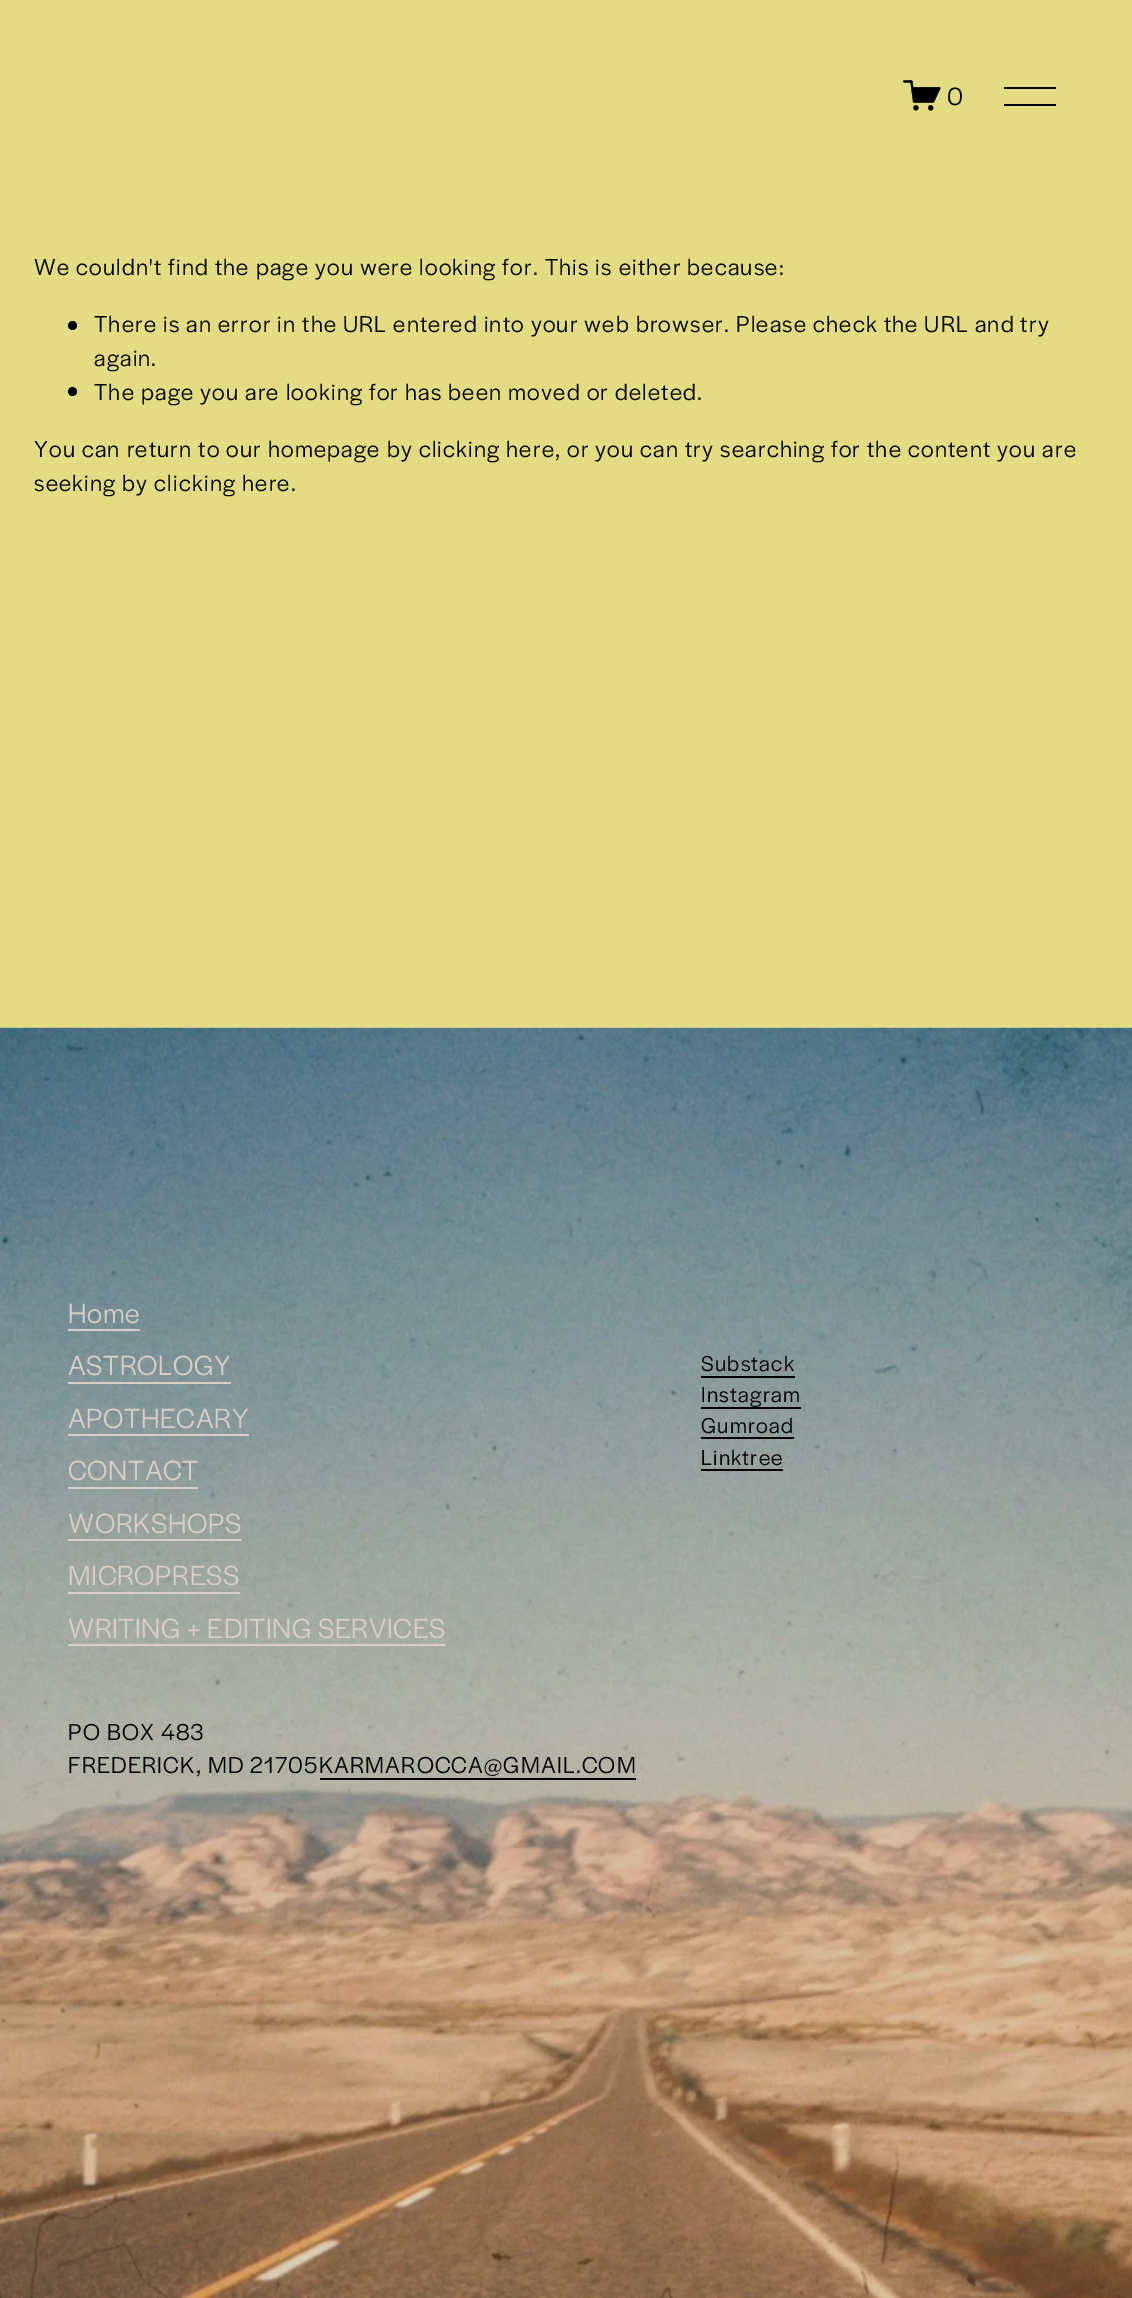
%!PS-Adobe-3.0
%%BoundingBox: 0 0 1132 2298
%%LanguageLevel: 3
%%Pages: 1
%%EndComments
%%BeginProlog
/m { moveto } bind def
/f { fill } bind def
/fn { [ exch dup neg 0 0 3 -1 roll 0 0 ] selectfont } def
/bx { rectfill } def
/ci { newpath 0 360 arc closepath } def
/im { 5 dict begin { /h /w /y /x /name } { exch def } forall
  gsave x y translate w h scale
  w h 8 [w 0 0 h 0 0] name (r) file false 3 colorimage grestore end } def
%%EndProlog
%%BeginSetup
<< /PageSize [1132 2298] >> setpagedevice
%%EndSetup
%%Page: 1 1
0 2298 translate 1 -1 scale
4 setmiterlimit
0.89 0.863 0.51 setrgbcolor
0 0 1132 2298 bx
(image0.raw) 903 80 38 31 im
/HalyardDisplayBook-Regular 26 fn
0 setgray
947 105 m 1 0 (0) ashow
1004 87 52 2 bx
1004 104 52 2 bx
/HalyardDisplayBook-Regular 24 fn
34 275 m 1.2 0 (We couldn't find the page you were looking for. This is either because:) ashow
72.5 325.5 4.5 ci f
94 332 m 1.2 0 (There is an error in the URL entered into your web browser. Please check the URL and try) ashow
94 366 m 1.2 0 (again.) ashow
72.5 391.5 4.5 ci f
94 400 m 1.2 0 (The page you are looking for has been moved or deleted.) ashow
34 457 m 1.2 0 (You can return to our homepage by clicking here, or you can try searching for the content you are) ashow
34 491 m 1.2 0 (seeking by clicking here.) ashow
(image1.raw) 0 1027 1132 1271 im
/HalyardDisplayBook-Regular 28.9 fn
0.851 0.804 0.78 setrgbcolor
68 1323 m 0.6 0 (Home) ashow
68 1329 72 2 bx
68 1375 m 0.6 0 (ASTROLOGY) ashow
68 1382 163 2 bx
/HalyardDisplayBook-Regular 22.5 fn
0 setgray
701 1371 m 1.2 0 (Substack) ashow
701 1376 94 2 bx
701 1402 m 1.2 0 (Instagram) ashow
701 1407 100 2 bx
701 1433 m 1.2 0 (Gumroad) ashow
701 1437 93 2 bx
701 1465 m 1.2 0 (Linktree) ashow
701 1469 82 2 bx
/HalyardDisplayBook-Regular 28.9 fn
0.851 0.804 0.78 setrgbcolor
68 1428 m 0.6 0 (APOTHECARY) ashow
68 1434 181 2 bx
68 1480 m 0.6 0 (CONTACT) ashow
68 1487 130 2 bx
68 1533 m 0.6 0 (WORKSHOPS) ashow
68 1539 174 2 bx
68 1585 m 0.6 0 (MICROPRESS) ashow
68 1592 172 2 bx
68 1638 m 0.6 0 (WRITING + EDITING SERVICES) ashow
68 1644 378 2 bx
/HalyardDisplayBook-Regular 24 fn
0 setgray
68 1740 m 1.2 0 (PO BOX 483) ashow
68 1773 m 1.2 0 (FREDERICK, MD 21705KARMAROCCA@GMAIL.COM) ashow
320 1778 316 2 bx
showpage
%%EOF
